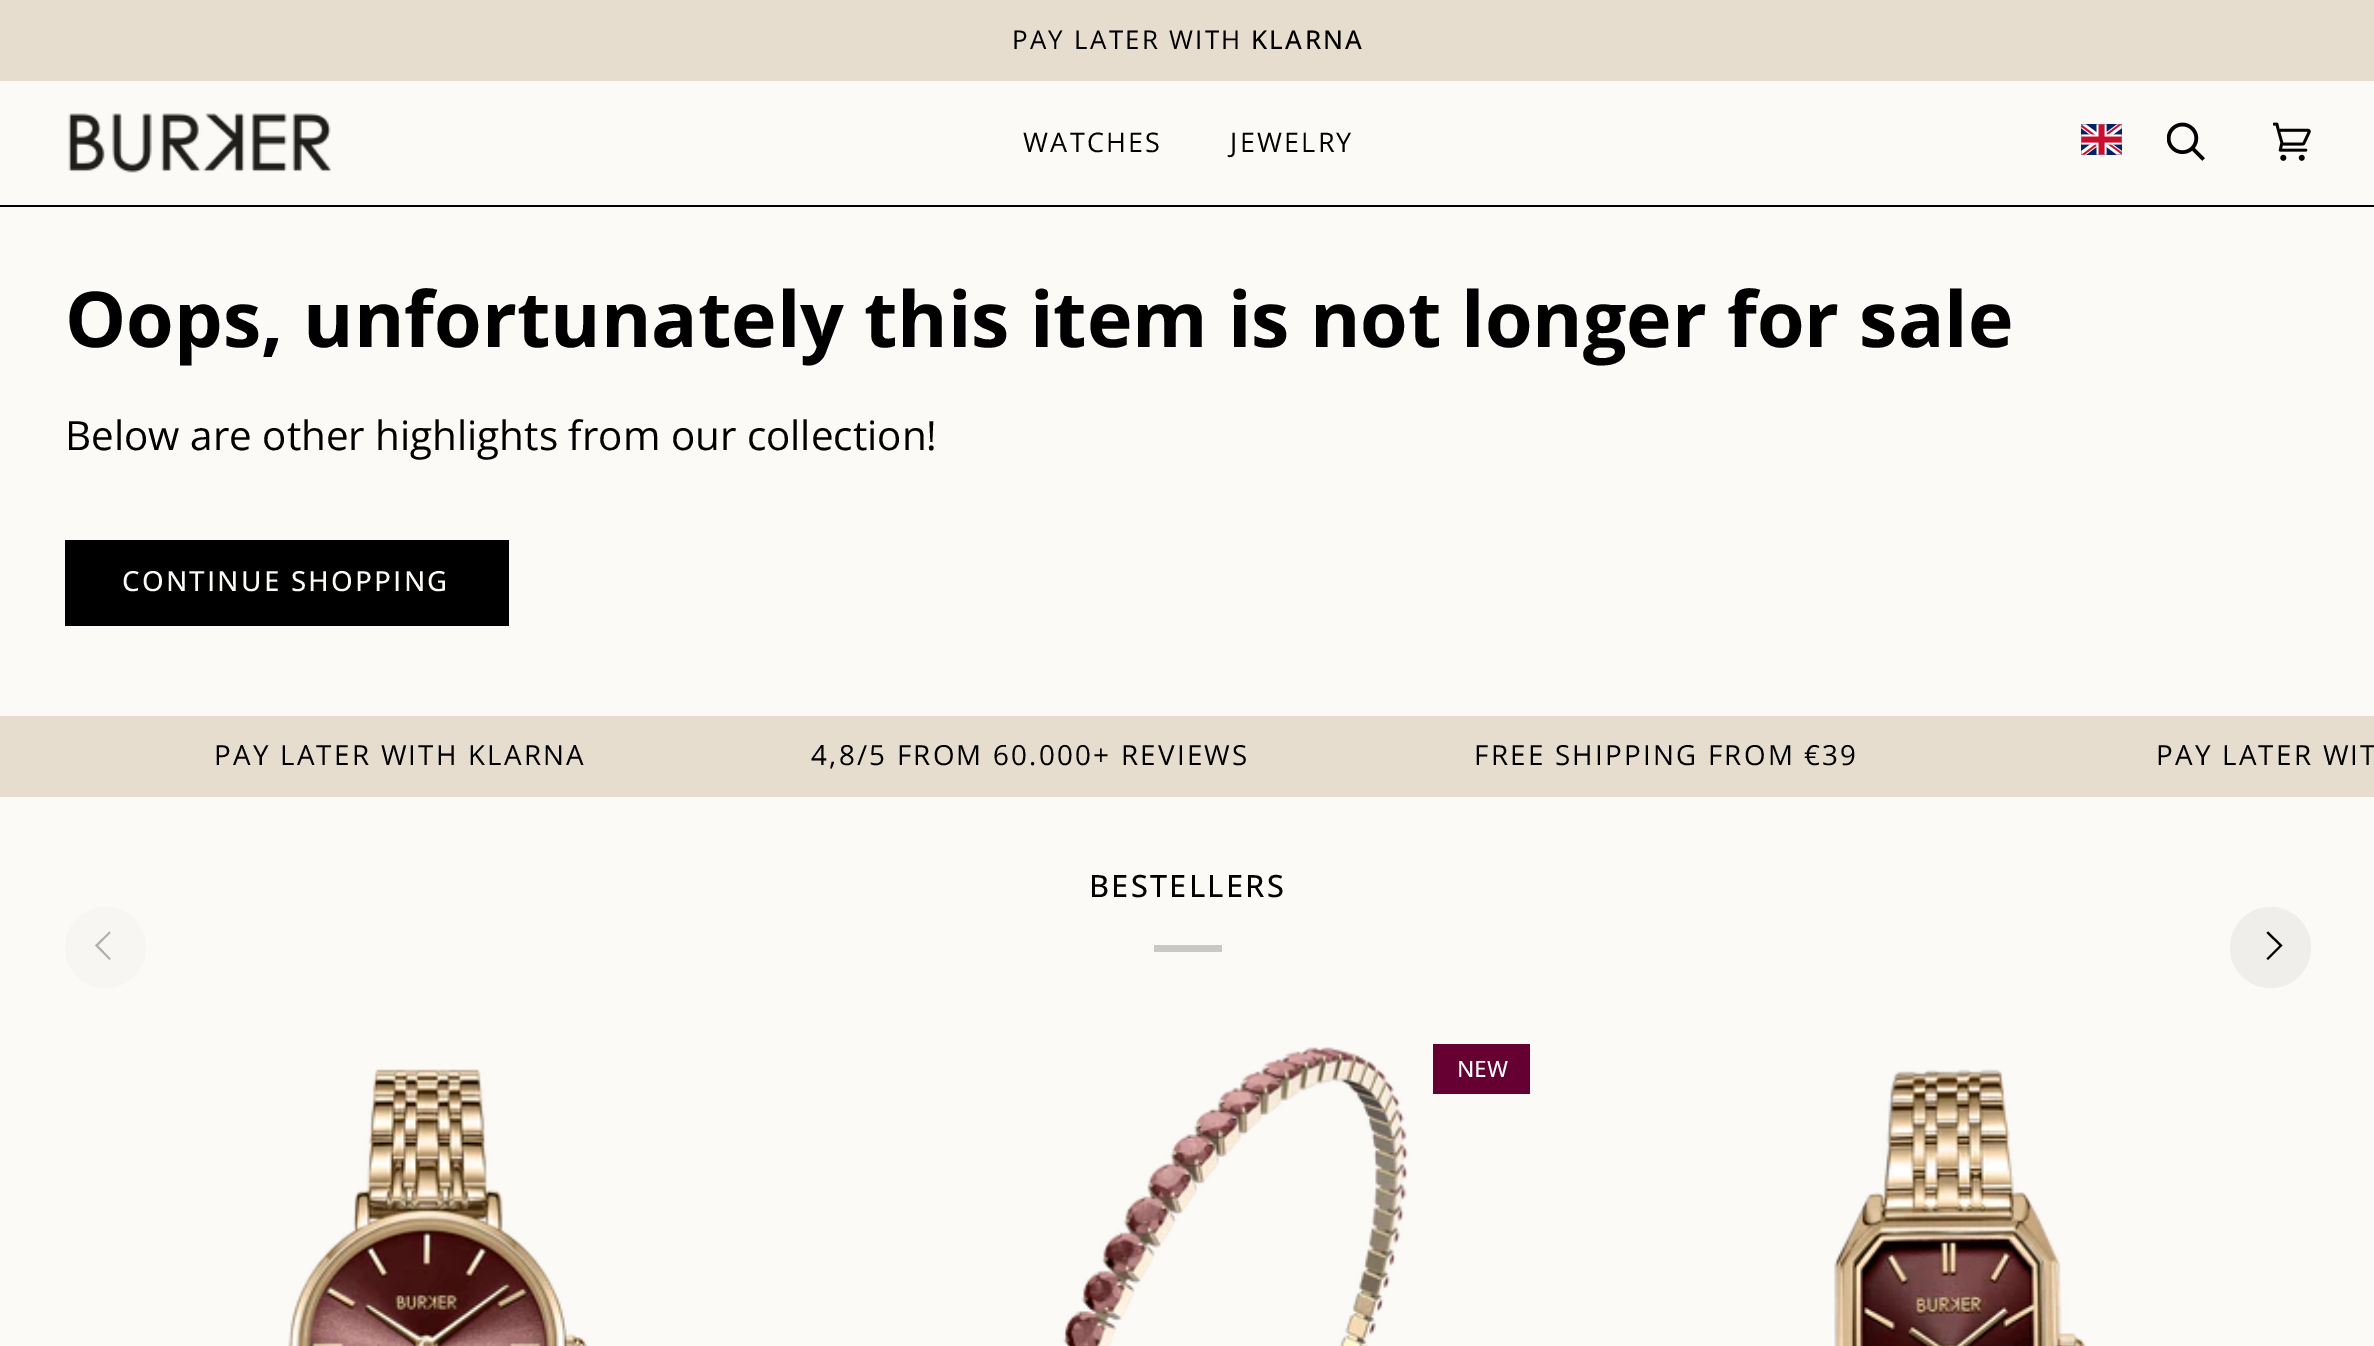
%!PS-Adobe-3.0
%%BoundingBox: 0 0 2374 1346
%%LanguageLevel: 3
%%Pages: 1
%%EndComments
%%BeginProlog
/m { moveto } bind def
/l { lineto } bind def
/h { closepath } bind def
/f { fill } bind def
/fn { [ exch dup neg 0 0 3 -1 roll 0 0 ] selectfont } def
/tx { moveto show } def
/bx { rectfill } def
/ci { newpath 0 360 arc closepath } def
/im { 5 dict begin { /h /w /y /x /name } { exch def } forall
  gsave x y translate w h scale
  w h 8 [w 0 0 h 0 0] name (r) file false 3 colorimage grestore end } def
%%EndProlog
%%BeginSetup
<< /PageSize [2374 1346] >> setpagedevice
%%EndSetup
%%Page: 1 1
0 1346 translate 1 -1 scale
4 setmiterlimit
0.988 0.98 0.969 setrgbcolor
0 0 2374 1346 bx
0.906 0.867 0.812 setrgbcolor
0 0 2374 81 bx
/OpenSans-Regular 25.9 fn
0 setgray
1012 49 m 2.25 0 (PAY LATER WITH) ashow
/OpenSans-Medium 25.9 fn
1251 49 m 2.25 0 (KLARNA) ashow
0 205 2374 2 bx
(image0.raw) 68 113 263 60 im
/OpenSans-Regular 27 fn
1023 152 m 2.25 0 (WATCHES) ashow
1230 152 m 2.25 0 (JEWELRY) ashow
(image1.raw) 2081 124 41 31 im
(image2.raw) 2167 122 38 39 im
(image3.raw) 2273 122 38 39 im
/OpenSans-Bold 77 fn
(Oops, unfortunately this item is not longer for sale) 65 347 tx
/OpenSans-Regular 40.4 fn
(Below are other highlights from our collection!) 65 450 tx
65 540 444 86 bx
/OpenSans-Medium 27.75 fn
0.988 0.98 0.969 setrgbcolor
122 591 m 2.25 0 (CONTINUE SHOPPING) ashow
0.906 0.867 0.812 setrgbcolor
0 716 2374 81 bx
/OpenSans-Regular 27.75 fn
0 setgray
214 765 m 2.25 0 (PAY LATER WITH KLARNA) ashow
811 765 m 2.25 0 (4,8/5 FROM 60.000+ REVIEWS) ashow
1474 765 m 2.25 0 (FREE SHIPPING FROM €39) ashow
2156 765 m 2.25 0 (PAY LATER WIT) ashow
/OpenSans-Medium 30.75 fn
1089 897 m 2.25 0 (BESTELLERS) ashow
0.792 0.784 0.776 setrgbcolor
1154 945 68 7 bx
0.973 0.965 0.953 setrgbcolor
105.5 947.5 40.5 ci f
0.69 0.686 0.678 setrgbcolor
95 945.5 m 109.5 960 l 110.5 958.5 l 98 945.5 l 110.5 933 l 109.5 931.5 l h f
0.937 0.933 0.922 setrgbcolor
2270.5 947.5 40.5 ci f
0 setgray
2282.5 945.5 m 2268 931.5 l 2266.5 933 l 2279.5 945.5 l 2266.5 958.5 l 2268 960 l h f
(image4.raw) 288 1069 300 277 im
(image5.raw) 1063 1047 346 299 im
0.4 0 0.2 setrgbcolor
1433 1044 97 50 bx
/OpenSans-Medium 22.5 fn
1 setgray
(NEW) 1457 1077 tx
(image6.raw) 1834 1069 253 277 im
showpage
%%EOF
